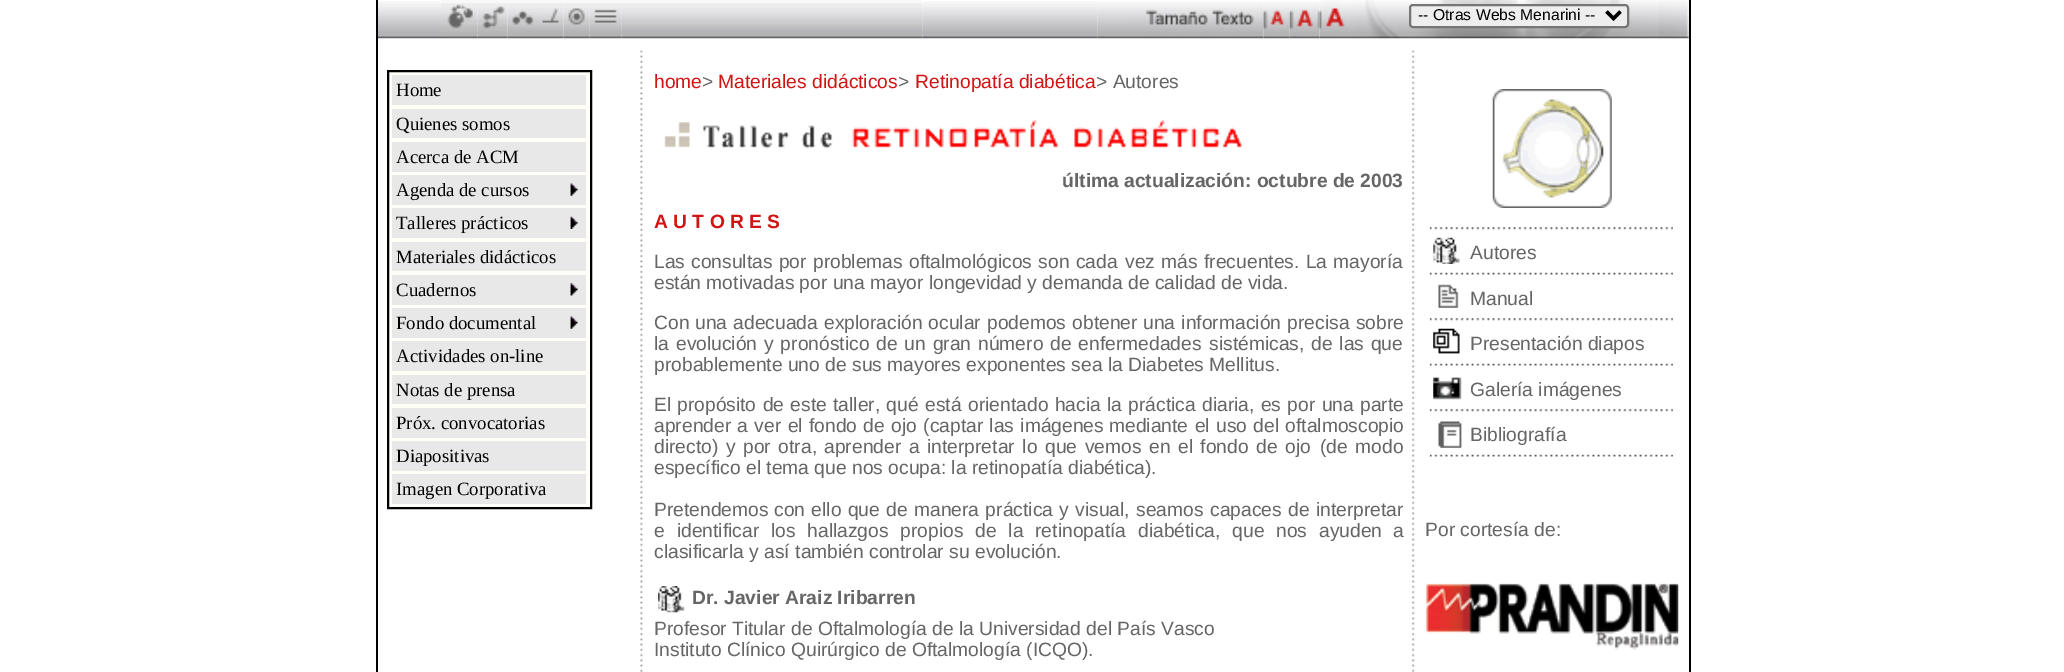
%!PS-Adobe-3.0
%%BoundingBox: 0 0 2064 672
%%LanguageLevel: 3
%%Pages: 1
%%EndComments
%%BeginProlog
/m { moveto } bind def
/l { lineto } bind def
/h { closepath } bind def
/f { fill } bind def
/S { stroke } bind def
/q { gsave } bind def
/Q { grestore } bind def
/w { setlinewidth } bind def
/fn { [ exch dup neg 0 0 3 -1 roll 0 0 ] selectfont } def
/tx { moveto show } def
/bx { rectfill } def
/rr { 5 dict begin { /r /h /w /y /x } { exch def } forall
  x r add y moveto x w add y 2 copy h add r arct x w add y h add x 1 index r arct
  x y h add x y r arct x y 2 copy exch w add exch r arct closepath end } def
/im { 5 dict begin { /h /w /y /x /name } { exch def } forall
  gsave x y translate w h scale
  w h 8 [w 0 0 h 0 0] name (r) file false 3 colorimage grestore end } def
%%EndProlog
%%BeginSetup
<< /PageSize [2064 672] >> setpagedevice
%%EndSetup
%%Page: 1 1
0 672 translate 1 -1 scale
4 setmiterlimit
1 setgray
0 0 2064 672 bx
0 setgray
376 0 1315 672 bx
1 setgray
378 0 1311 672 bx
(image0.raw) 378 1 63 38 im
(image1.raw) 441 0 37 39 im
(image2.raw) 477 0 31 39 im
(image3.raw) 507 0 32 39 im
(image4.raw) 539 0 25 39 im
(image5.raw) 563 0 27 39 im
(image6.raw) 589 0 33 39 im
(image7.raw) 621 0 302 39 im
(image8.raw) 922 1 176 38 im
(image9.raw) 1097 1 167 38 im
(image10.raw) 1263 1 27 38 im
(image11.raw) 1289 1 31 38 im
(image12.raw) 1319 0 32 39 im
(image13.raw) 1351 0 338 39 im
0.933 setgray
1410 5 218 22 3 rr q f Q
0.463 setgray
2 w
S
0 setgray
3.5 w
1606.5 11.5 m 1613.5 18.5 l 1620.5 11.5 l S
/LiberationSans-Regular 15.75 fn
(-- Otras Webs Menarini --) 1418 20 tx
1 1 0.969 setrgbcolor
388 71 m 591 71 l 591 508 l 388 508 l h q f Q
0 setgray
2 w
S
0.91 setgray
392 75 194 30 bx
/LiberationSerif-Regular 18.75 fn
0 setgray
(Home) 396 96 tx
0.91 setgray
392 109 194 29 bx
0 setgray
(Quienes somos) 396 130 tx
0.91 setgray
392 142 194 30 bx
0 setgray
(Acerca de ACM) 396 163 tx
0.91 setgray
392 175 194 30 bx
0 setgray
(Agenda de cursos) 396 196 tx
(image14.raw) 570 183 8 13 im
0.91 setgray
392 208 194 30 bx
0 setgray
(Talleres prácticos) 396 229 tx
(image15.raw) 570 216 8 13 im
0.91 setgray
392 242 194 29 bx
0 setgray
(Materiales didácticos) 396 263 tx
0.91 setgray
392 275 194 30 bx
0 setgray
(Cuadernos) 396 296 tx
(image16.raw) 570 283 8 13 im
0.91 setgray
392 308 194 30 bx
0 setgray
(Fondo documental) 396 329 tx
(image14.raw) 570 316 8 13 im
0.91 setgray
392 341 194 30 bx
0 setgray
(Actividades on-line) 396 362 tx
0.91 setgray
392 375 194 29 bx
0 setgray
(Notas de prensa) 396 396 tx
0.91 setgray
392 408 194 30 bx
0 setgray
(Próx. convocatorias) 396 429 tx
0.91 setgray
392 441 194 30 bx
0 setgray
(Diapositivas) 396 462 tx
0.91 setgray
392 474 194 30 bx
0 setgray
(Imagen Corporativa) 396 495 tx
(image17.raw) 640 50 3 622 im
/LiberationSans-Regular 19.25 fn
0.82 0.082 0.078 setrgbcolor
(home) 654 88 tx
0.4 setgray
(>) 702 88 tx
0.82 0.082 0.078 setrgbcolor
(Materiales didácticos) 718 88 tx
0.4 setgray
(>) 898 88 tx
0.82 0.082 0.078 setrgbcolor
(Retinopatía diabética) 915 88 tx
0.4 setgray
(> Autores) 1096 88 tx
(image18.raw) 664 120 579 29 im
/LiberationSans-Bold 19.25 fn
(última actualización: octubre de 2003) 1062 187 tx
0.82 0.082 0.078 setrgbcolor
(A U T O R E S) 654 228 tx
/LiberationSans-Regular 19.25 fn
0.4 setgray
(Las) 654 268 tx
691 268 m 1 0 32 (consultas por problemas oftalmológicos son cada) widthshow
1125 268 m 1 0 32 (vez más frecuentes. La mayoría) widthshow
(están motivadas por una mayor longevidad y demanda de calidad de vida.) 654 289 tx
(Con) 654 329 tx
695 329 m 0.75 0 32 (una adecuada exploración ocular podemos obtener) widthshow
1143 329 m 1 0 32 (una información precisa sobre) widthshow
654 350 m 1.5 0 32 (la evolución) widthshow
764 350 m 1.5 0 32 (y pronóstico de un gran número de enfermedades) widthshow
1209 350 m 1.5 0 32 (sistémicas, de las que) widthshow
(probablemente uno de sus mayores exponentes sea la Diabetes Mellitus.) 654 371 tx
(El) 654 411 tx
677 411 m 1 0 32 (propósito de este taller, qué está) widthshow
968 411 m 1 0 32 (orientado hacia la práctica diaria, es por una) widthshow
(parte) 1360 411 tx
654 432 m 1 0 32 (aprender a ver el fondo de ojo \(captar las imágenes) widthshow
1109 432 m 1 0 32 (mediante el uso del oftalmoscopio) widthshow
654 453 m 2.25 0 32 (directo\) y por otra,) widthshow
824 453 m 2.25 0 32 (aprender a interpretar lo que vemos en el fondo de ojo) widthshow
1320 453 m 2.25 0 32 (\(de modo) widthshow
(específico el tema que nos ocupa: la retinopatía diabética\).) 654 474 tx
(Pretendemos) 654 516 tx
774 516 m 1 0 32 (con ello que de manera práctica y visual, seamos) widthshow
1210 516 m 1 0 32 (capaces de interpretar) widthshow
654 537 m 6.5 0 32 (e identificar los hallazgos propios) widthshow
975 537 m 6.5 0 32 (de la retinopatía diabética, que nos ayuden) widthshow
(a) 1393 537 tx
(clasificarla y así también controlar su evolución.) 654 558 tx
(image19.raw) 658 586 27 27 im
/LiberationSans-Bold 19.25 fn
(Dr. Javier Araiz Iribarren) 692 604 tx
/LiberationSans-Regular 19.25 fn
(Profesor Titular de Oftalmología de la Universidad del País Vasco) 654 635 tx
(Instituto Clínico Quirúrgico de Oftalmología \(ICQO\).) 654 656 tx
(image20.raw) 1412 50 3 622 im
(image21.raw) 1492 89 120 119 im
(image22.raw) 1429 227 244 3 im
(image23.raw) 1433 237 27 27 im
(Autores) 1470 259 tx
(image24.raw) 1429 272 244 3 im
(image25.raw) 1438 284 21 24 im
(Manual) 1470 305 tx
(image22.raw) 1429 318 244 3 im
(image26.raw) 1433 328 27 26 im
(Presentación diapos) 1470 350 tx
(image24.raw) 1429 363 244 3 im
(image27.raw) 1433 377 29 23 im
(Galería imágenes) 1470 396 tx
(image22.raw) 1429 409 244 3 im
(image28.raw) 1438 421 24 27 im
(Bibliografía) 1470 441 tx
(image29.raw) 1429 454 244 3 im
(Por cortesía de:) 1425 536 tx
(image30.raw) 1425 583 254 67 im
showpage
%%EOF
